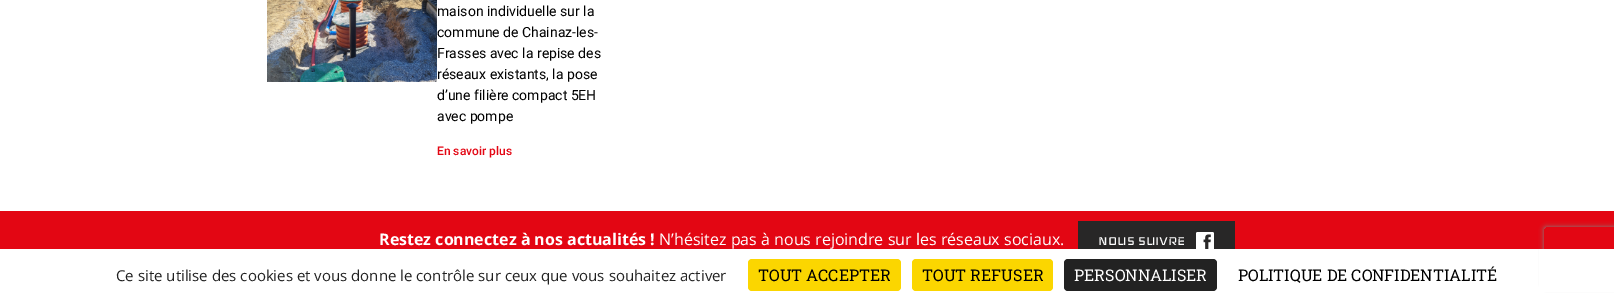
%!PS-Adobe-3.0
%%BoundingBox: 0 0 1614 301
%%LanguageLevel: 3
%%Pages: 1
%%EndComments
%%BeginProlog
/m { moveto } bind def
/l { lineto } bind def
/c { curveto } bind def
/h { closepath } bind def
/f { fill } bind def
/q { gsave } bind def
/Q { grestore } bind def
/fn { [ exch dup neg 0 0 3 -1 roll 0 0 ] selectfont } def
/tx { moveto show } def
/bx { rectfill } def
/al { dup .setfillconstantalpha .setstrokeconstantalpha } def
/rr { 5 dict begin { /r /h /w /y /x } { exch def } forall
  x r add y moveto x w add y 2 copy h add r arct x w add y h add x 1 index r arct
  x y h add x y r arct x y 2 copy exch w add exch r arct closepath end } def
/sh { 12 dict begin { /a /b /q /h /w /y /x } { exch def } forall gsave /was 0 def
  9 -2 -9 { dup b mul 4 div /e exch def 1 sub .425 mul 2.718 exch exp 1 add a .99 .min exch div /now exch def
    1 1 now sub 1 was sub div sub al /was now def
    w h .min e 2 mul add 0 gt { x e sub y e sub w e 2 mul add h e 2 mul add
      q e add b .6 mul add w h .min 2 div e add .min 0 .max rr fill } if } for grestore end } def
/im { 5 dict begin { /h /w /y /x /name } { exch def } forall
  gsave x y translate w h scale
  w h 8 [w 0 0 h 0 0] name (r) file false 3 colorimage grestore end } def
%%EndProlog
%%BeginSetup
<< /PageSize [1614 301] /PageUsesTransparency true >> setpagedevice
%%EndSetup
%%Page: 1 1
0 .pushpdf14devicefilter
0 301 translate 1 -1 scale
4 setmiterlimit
1 setgray
0 0 1614 301 bx
(image0.raw) 267 0 170 82 im
/Roboto-Regular 14 fn
0 setgray
(maison individuelle sur la) 437 16 tx
(commune de Chainaz-les-) 437 37 tx
(Frasses avec la repise des) 437 58 tx
(réseaux existants, la pose) 437 79 tx
(d’une filière compact 5EH) 437 100 tx
(avec pompe) 437 121 tx
/Roboto-Medium 12 fn
0.89 0.024 0.075 setrgbcolor
(En savoir plus) 437 155 tx
0 211 1614 38 bx
/OpenSans-Bold 16 fn
1 setgray
(Restez connectez à nos actualités !) 379 245 tx
/OpenSans-Regular 16 fn
(N’hésitez pas à nous rejoindre sur les réseaux sociaux.) 659 245 tx
0.157 0.153 0.153 setrgbcolor
1078 221 157 28 bx
/Iceland-Regular 16 fn
1 setgray
(NOUS SUIVRE) 1098 245 tx
(image1.raw) 1196 232 18 17 im
q
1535 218 m 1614 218 l 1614 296 l 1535 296 l h 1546 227 m 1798 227 l 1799 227 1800 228 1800 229 c 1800 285 l 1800 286 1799 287 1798 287 c 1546 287 l 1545 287 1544 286 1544 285 c 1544 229 l 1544 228 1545 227 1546 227 c h eoclip newpath
0.502 setgray
1544 227 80 60 2 2.5 1 sh
Q
1539 249 75 43 bx
/OpenSans-Regular 15 fn
0.133 setgray
(Ce site utilise des cookies et vous donne le contrôle sur ceux que vous souhaitez activer) 116 281 tx
0.984 0.839 0 setrgbcolor
748 259 153 32 4 rr f
/RobotoSlab-Regular 16 fn
0 setgray
(TOUT ACCEPTER) 758 281 tx
0.984 0.839 0 setrgbcolor
912 259 141 32 4 rr f
0 setgray
(TOUT REFUSER) 922 281 tx
0.133 setgray
1064 259 153 32 4 rr f
1 setgray
(PERSONNALISER) 1074 281 tx
0 setgray
(POLITIQUE DE CONFIDENTIALITÉ) 1238 281 tx
.poppdf14devicefilter showpage
%%EOF
